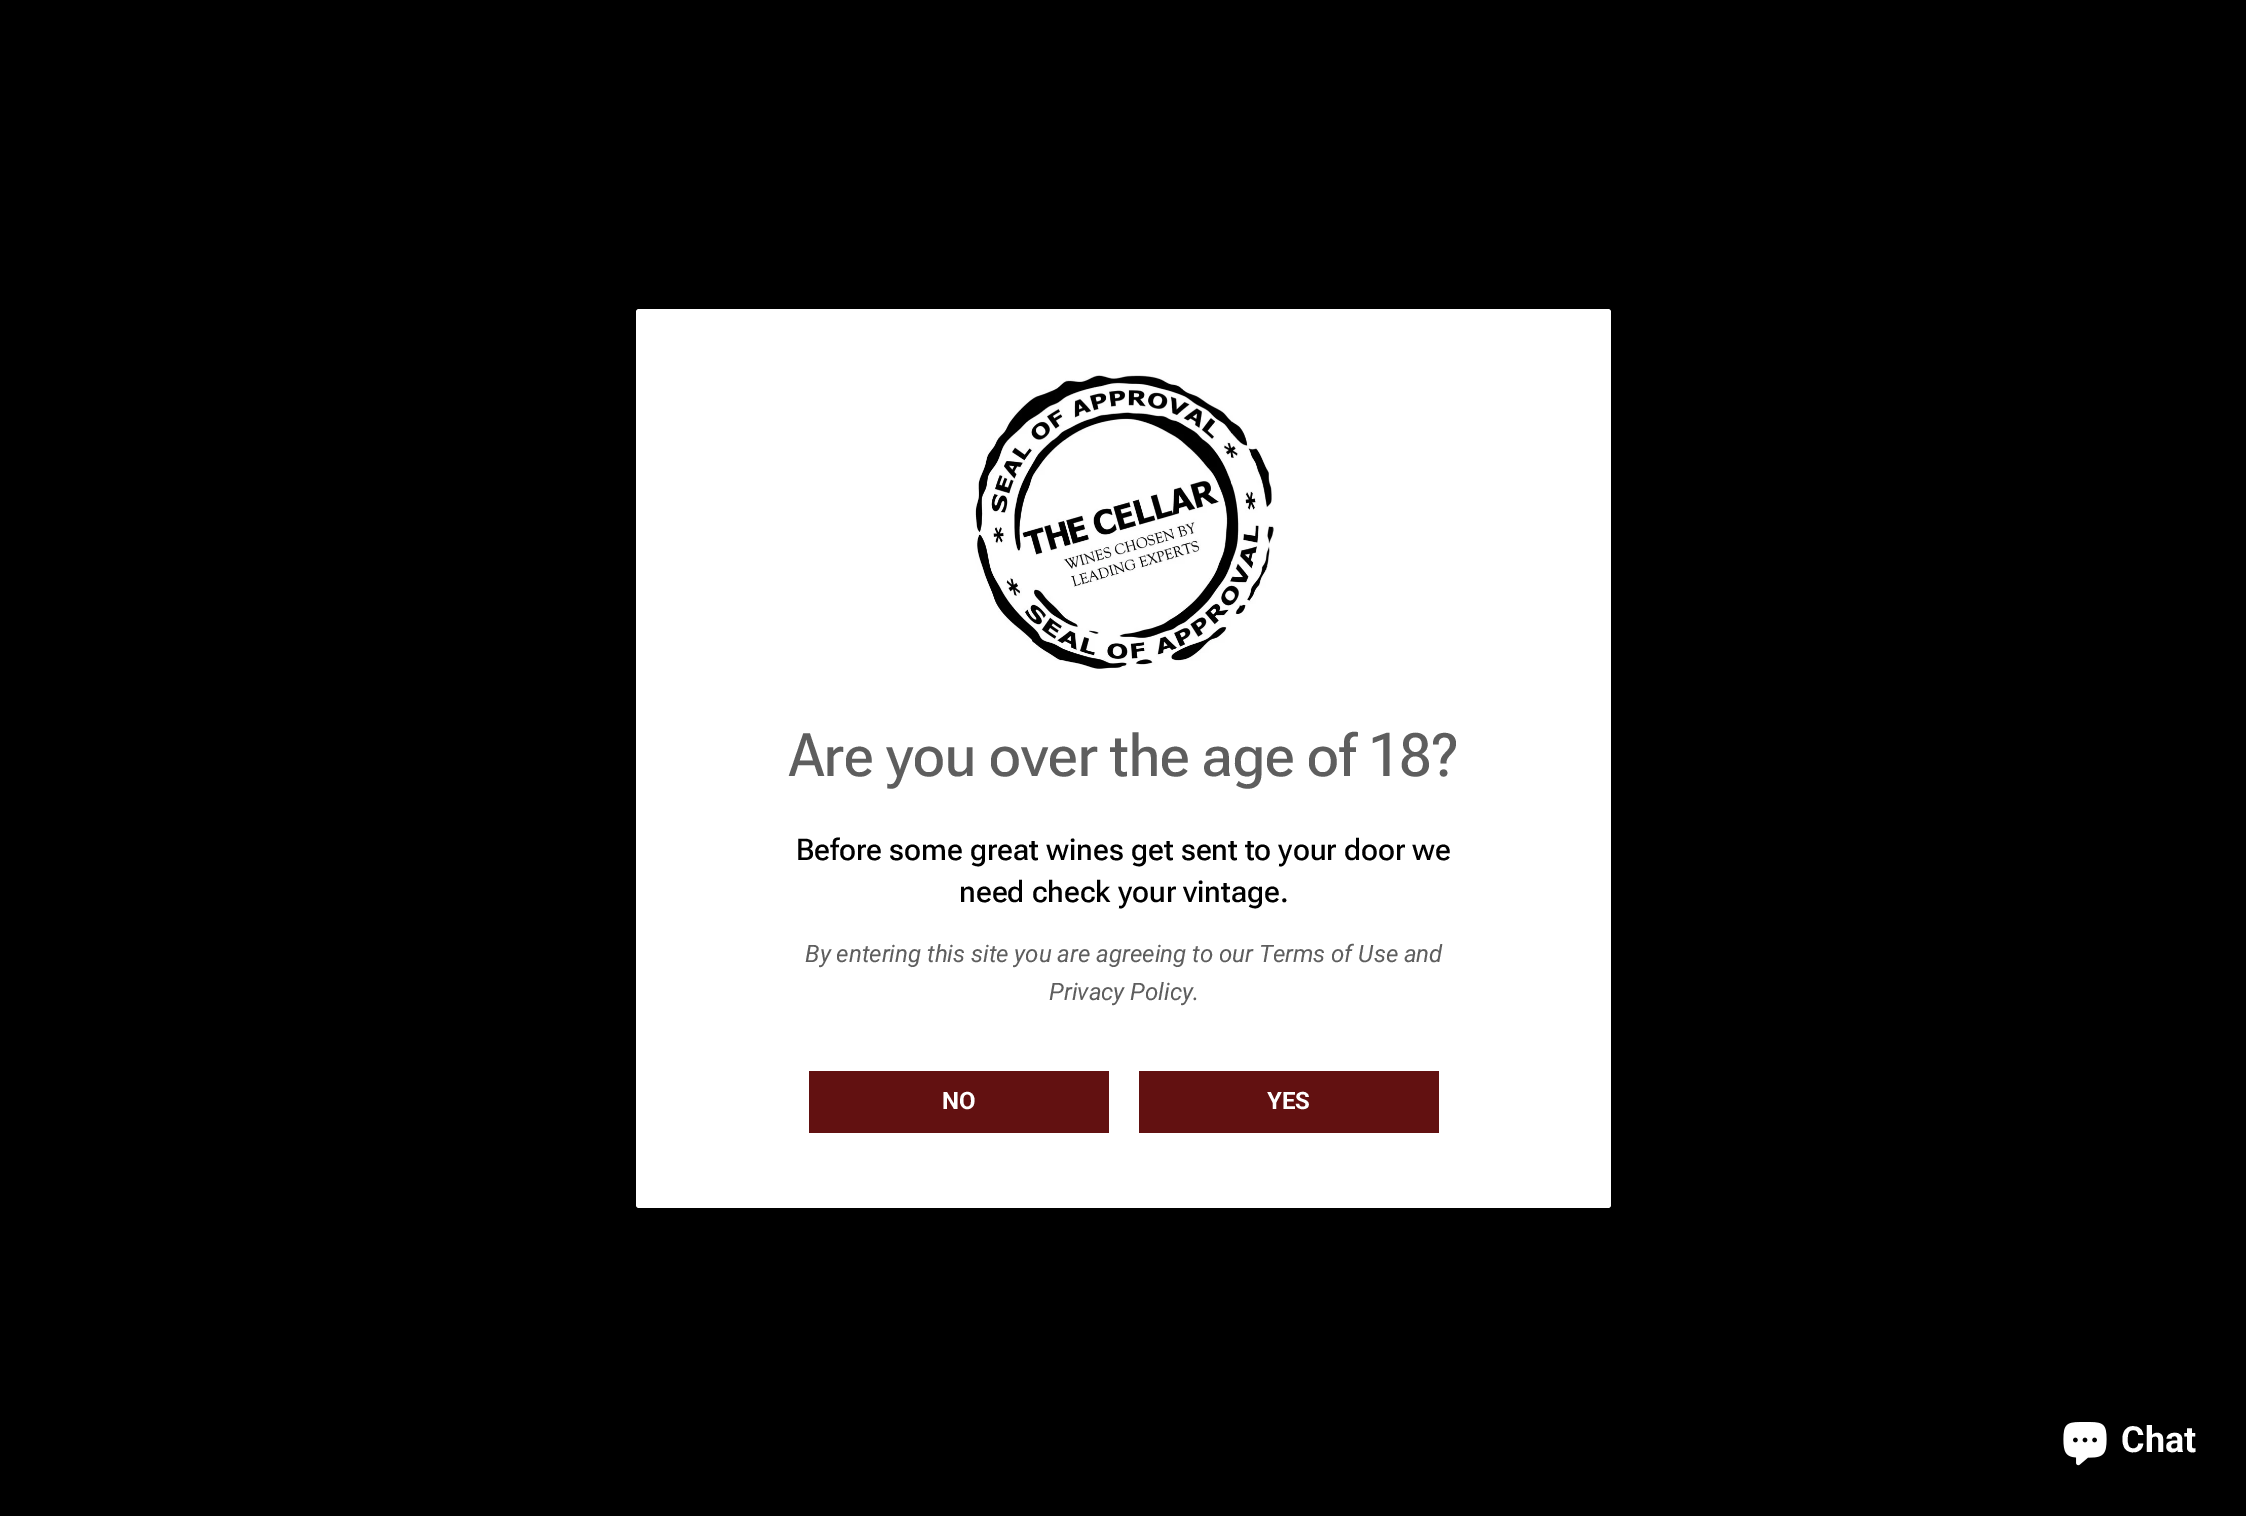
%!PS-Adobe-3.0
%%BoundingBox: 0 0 2246 1516
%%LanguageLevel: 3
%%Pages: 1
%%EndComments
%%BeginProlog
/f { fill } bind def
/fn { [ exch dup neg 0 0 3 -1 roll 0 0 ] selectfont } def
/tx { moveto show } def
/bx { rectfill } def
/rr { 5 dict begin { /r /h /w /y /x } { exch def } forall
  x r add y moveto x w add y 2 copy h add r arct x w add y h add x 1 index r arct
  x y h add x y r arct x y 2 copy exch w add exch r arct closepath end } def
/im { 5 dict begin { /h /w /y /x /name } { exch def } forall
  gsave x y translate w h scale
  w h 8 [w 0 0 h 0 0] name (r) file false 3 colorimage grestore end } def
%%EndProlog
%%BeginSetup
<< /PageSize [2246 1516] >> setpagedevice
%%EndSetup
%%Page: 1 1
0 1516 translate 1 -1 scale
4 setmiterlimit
0 setgray
0 0 2246 1516 bx
1 setgray
636 309 975 899 3 rr f
(image0.raw) 975 375 299 294 im
/RobotoFlex-Medium 60 fn
0.369 setgray
(Are you over the age of 18?) 789 776 tx
/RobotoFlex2-Medium 30 fn
0 setgray
(Before some great wines get sent to your door we) 796 860 tx
(need check your vintage.) 959 902 tx
/Roboto-Italic 24 fn
0.369 setgray
(By entering this site you are agreeing to our Terms of Use and) 805 962 tx
(Privacy Policy.) 1049 1000 tx
0.384 0.067 0.067 setrgbcolor
809 1071 300 62 bx
/Roboto-Bold 24 fn
1 setgray
(NO) 942 1109 tx
0.384 0.067 0.067 setrgbcolor
1139 1071 300 62 bx
1 setgray
(YES) 1267 1109 tx
(image1.raw) 2063 1422 44 44 im
/Roboto-Bold 36 fn
(Chat) 2121 1452 tx
showpage
%%EOF
